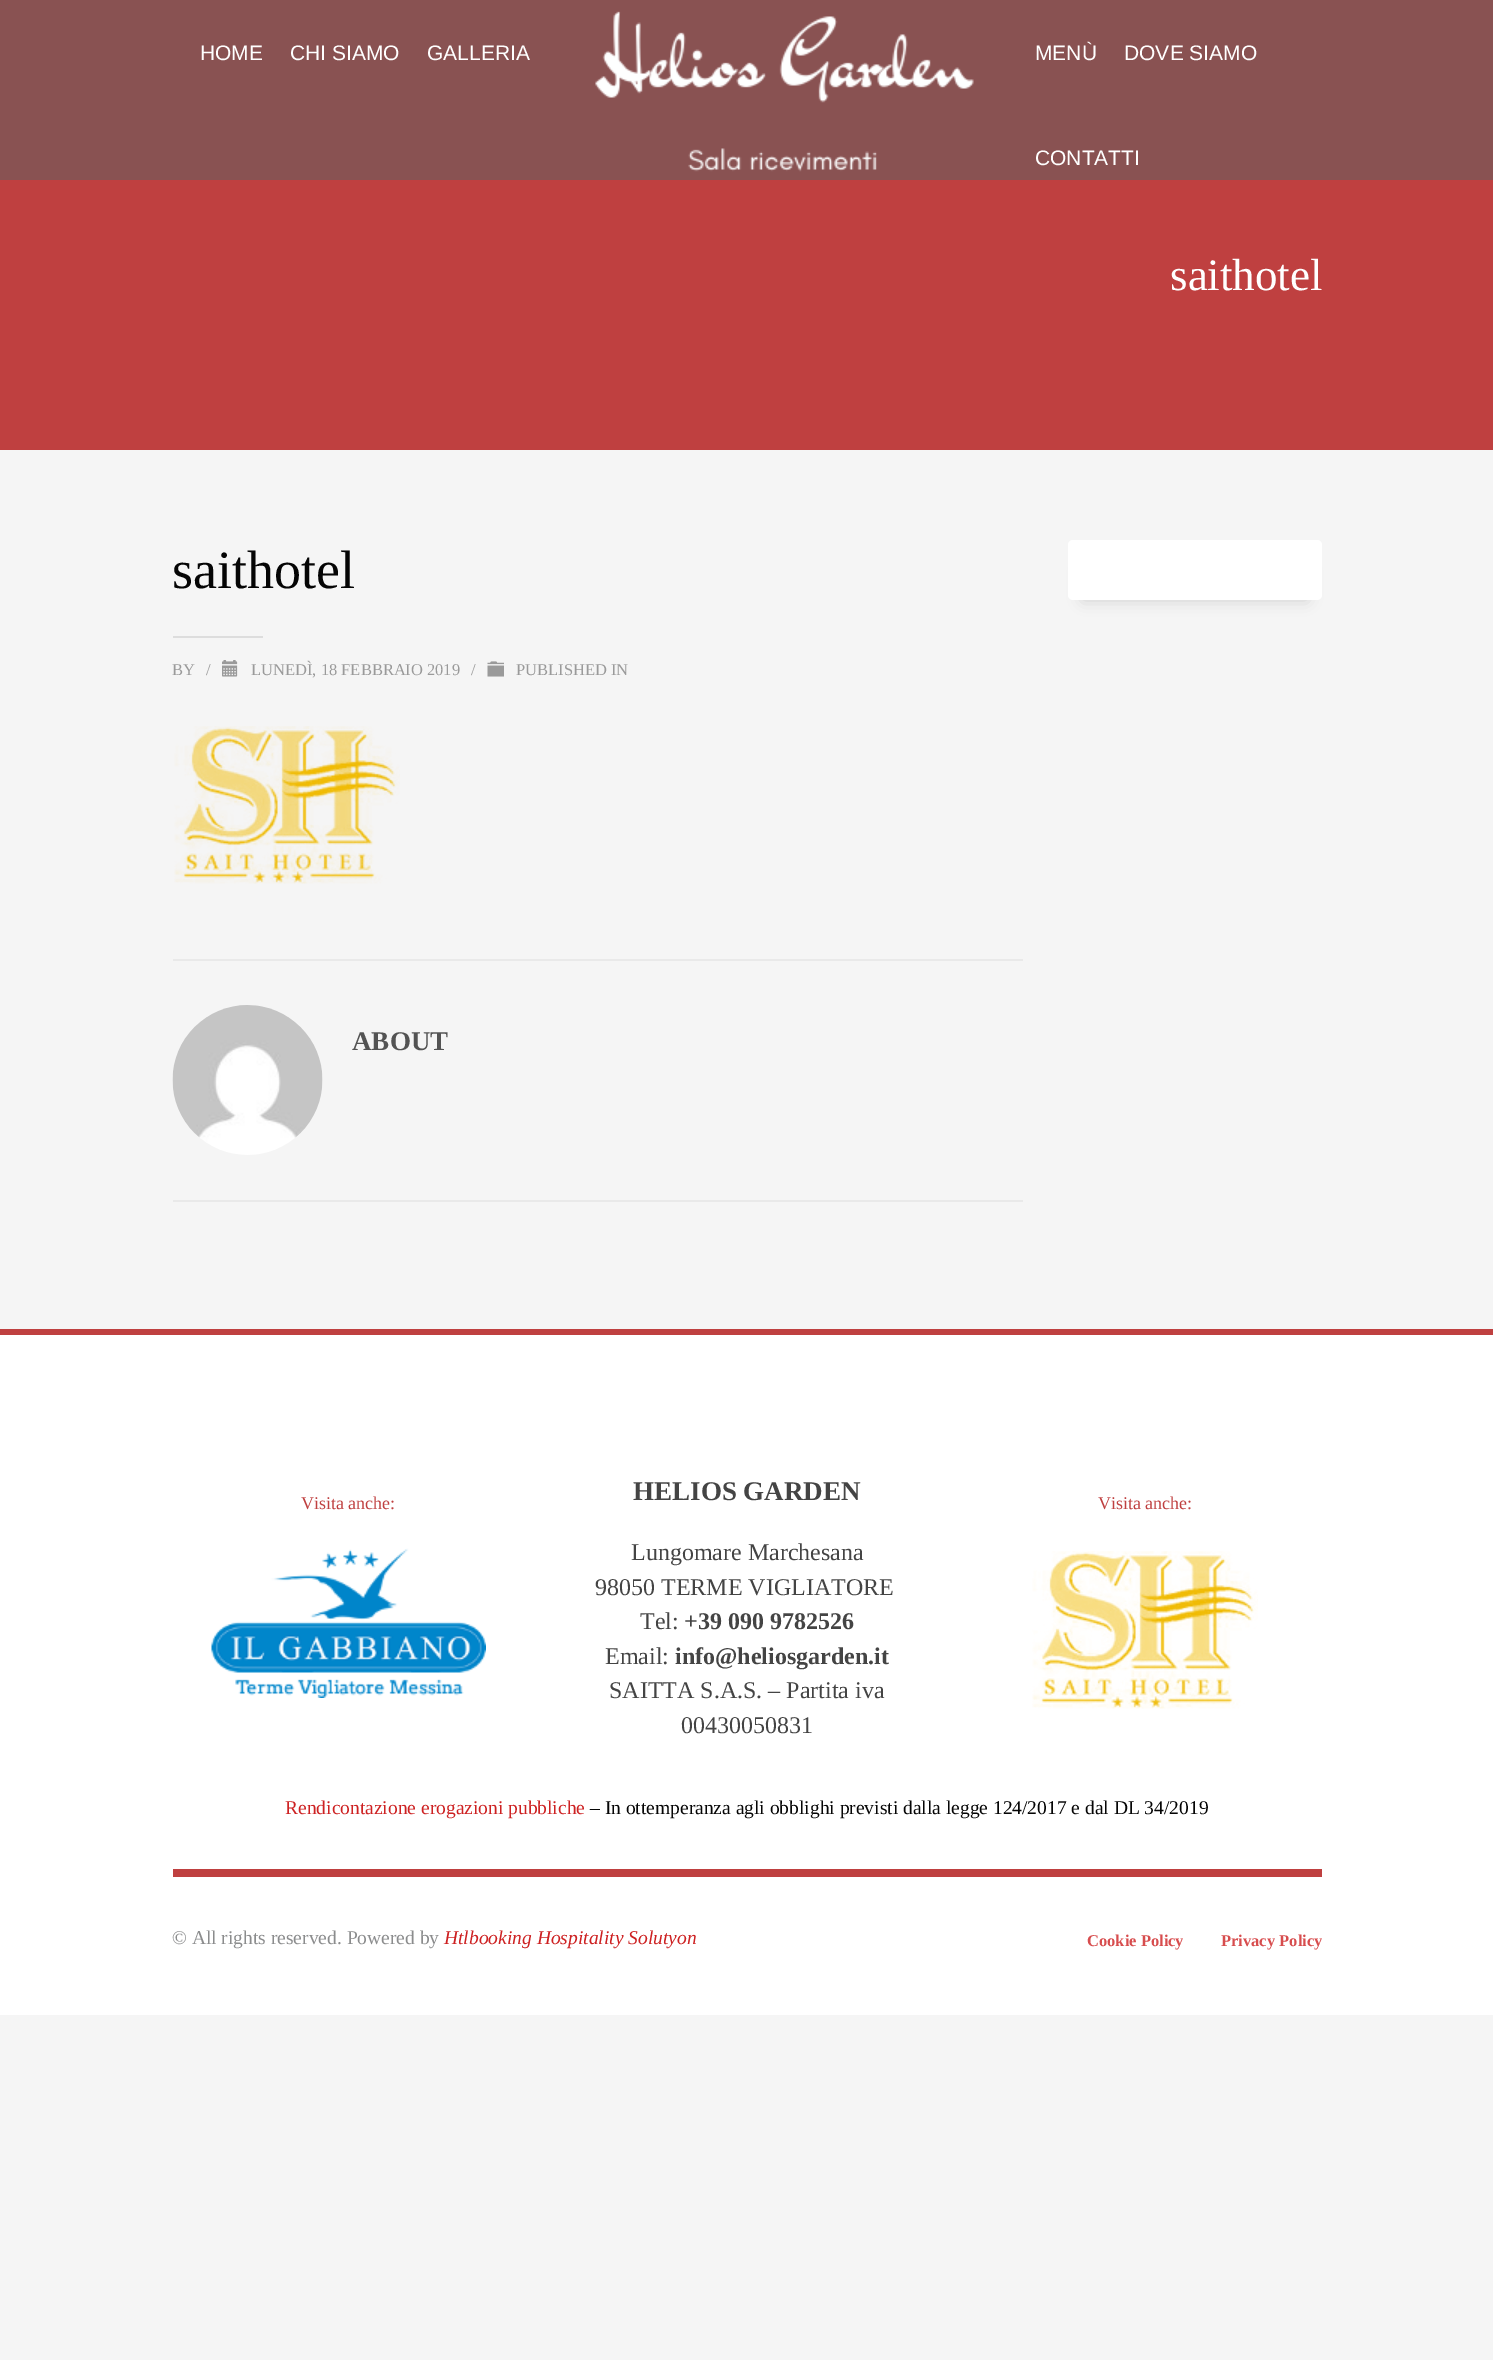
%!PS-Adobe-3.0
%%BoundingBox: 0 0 1493 2360
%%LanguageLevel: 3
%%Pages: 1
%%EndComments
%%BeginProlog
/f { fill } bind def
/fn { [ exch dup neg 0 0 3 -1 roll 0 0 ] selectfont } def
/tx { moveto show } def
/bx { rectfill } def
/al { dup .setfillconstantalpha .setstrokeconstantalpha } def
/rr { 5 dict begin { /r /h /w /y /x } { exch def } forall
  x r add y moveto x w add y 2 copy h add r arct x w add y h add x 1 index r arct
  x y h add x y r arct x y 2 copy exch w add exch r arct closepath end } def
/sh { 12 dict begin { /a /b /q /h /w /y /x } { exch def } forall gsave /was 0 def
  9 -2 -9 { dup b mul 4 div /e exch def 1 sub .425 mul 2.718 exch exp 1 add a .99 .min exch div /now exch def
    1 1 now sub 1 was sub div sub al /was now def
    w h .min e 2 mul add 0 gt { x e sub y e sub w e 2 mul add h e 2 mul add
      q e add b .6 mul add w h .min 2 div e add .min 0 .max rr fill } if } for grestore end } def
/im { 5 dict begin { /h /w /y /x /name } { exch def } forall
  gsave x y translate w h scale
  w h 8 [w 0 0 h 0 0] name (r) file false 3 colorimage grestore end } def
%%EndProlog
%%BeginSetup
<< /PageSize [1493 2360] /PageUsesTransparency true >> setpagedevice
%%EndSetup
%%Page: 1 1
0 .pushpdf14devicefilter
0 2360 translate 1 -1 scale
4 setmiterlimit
0.961 setgray
0 0 1493 2360 bx
0.537 0.322 0.322 setrgbcolor
0 0 1493 180 bx
/LiberationSans-Regular 21 fn
1 setgray
(HOME) 200 60 tx
(CHI SIAMO) 290 60 tx
(GALLERIA) 427 60 tx
(image0.raw) 595 11 379 161 im
(MENÙ) 1035 60 tx
(DOVE SIAMO) 1124 60 tx
(CONTATTI) 1035 165 tx
0.749 0.251 0.251 setrgbcolor
0 180 1493 270 bx
/LiberationSerif-Regular 45 fn
1 setgray
(saithotel) 1170 290 tx
/LiberationSerif-Regular 54 fn
0.02 setgray
(saithotel) 172 588 tx
0.867 setgray
173 636 90 2 bx
/LiberationSerif-Regular 16.5 fn
0.604 setgray
(BY) 172 675 tx
(/) 206 675 tx
(image1.raw) 222 660 16 17 im
(LUNEDÌ, 18 FEBBRAIO 2019) 251 675 tx
(/) 471 675 tx
(image2.raw) 487 661 17 16 im
(PUBLISHED IN) 516 675 tx
(image3.raw) 174 726 226 158 im
0.914 setgray
173 959 850 2 bx
173 1200 850 2 bx
(image4.raw) 172 1005 151 150 im
/LiberationSerif-Bold 27 fn
0.325 setgray
(ABOUT) 352 1050 tx
0 setgray
1083 570 224 30 0 7.5 0.15 sh
1 setgray
1068 540 254 60 5 rr f
0 1335 1493 680 bx
0.749 0.251 0.251 setrgbcolor
0 1329 1493 6 bx
/LiberationSerif-Regular 18 fn
(Visita anche:) 301 1509 tx
(image5.raw) 211 1548 275 150 im
/LiberationSerif-Bold 27 fn
0.267 setgray
(HELIOS GARDEN) 633 1500 tx
/LiberationSerif-Regular 24 fn
(Lungomare Marchesana) 631 1560 tx
(98050 TERME VIGLIATORE) 595 1595 tx
(Tel:) 640 1629 tx
/LiberationSerif-Bold 24 fn
(+39 090 9782526) 684 1629 tx
/LiberationSerif-Regular 24 fn
(Email:) 605 1664 tx
/LiberationSerif-Bold 24 fn
(info@heliosgarden.it) 675 1664 tx
/LiberationSerif-Regular 24 fn
(SAITTA S.A.S. – Partita iva) 609 1698 tx
(00430050831) 681 1733 tx
/LiberationSerif-Regular 18 fn
0.749 0.251 0.251 setrgbcolor
(Visita anche:) 1098 1509 tx
(image6.raw) 1032 1551 226 158 im
/LiberationSerif-Regular 19.5 fn
0.804 0.129 0.133 setrgbcolor
(Rendicontazione erogazioni pubbliche) 285 1814 tx
0.02 setgray
(– In ottemperanza agli obblighi previsti dalla legge 124/2017 e dal DL 34/2019) 590 1814 tx
0.749 0.251 0.251 setrgbcolor
173 1869 1149 8 bx
0.545 0.549 0.553 setrgbcolor
(© All rights reserved. Powered by) 172 1944 tx
/LiberationSerif-Italic 19.5 fn
0.804 0.129 0.133 setrgbcolor
(Htlbooking Hospitality Solutyon) 444 1944 tx
/LiberationSerif-Bold 16.5 fn
0.843 0.302 0.306 setrgbcolor
(Cookie Policy) 1087 1946 tx
(Privacy Policy) 1221 1946 tx
.poppdf14devicefilter showpage
%%EOF
